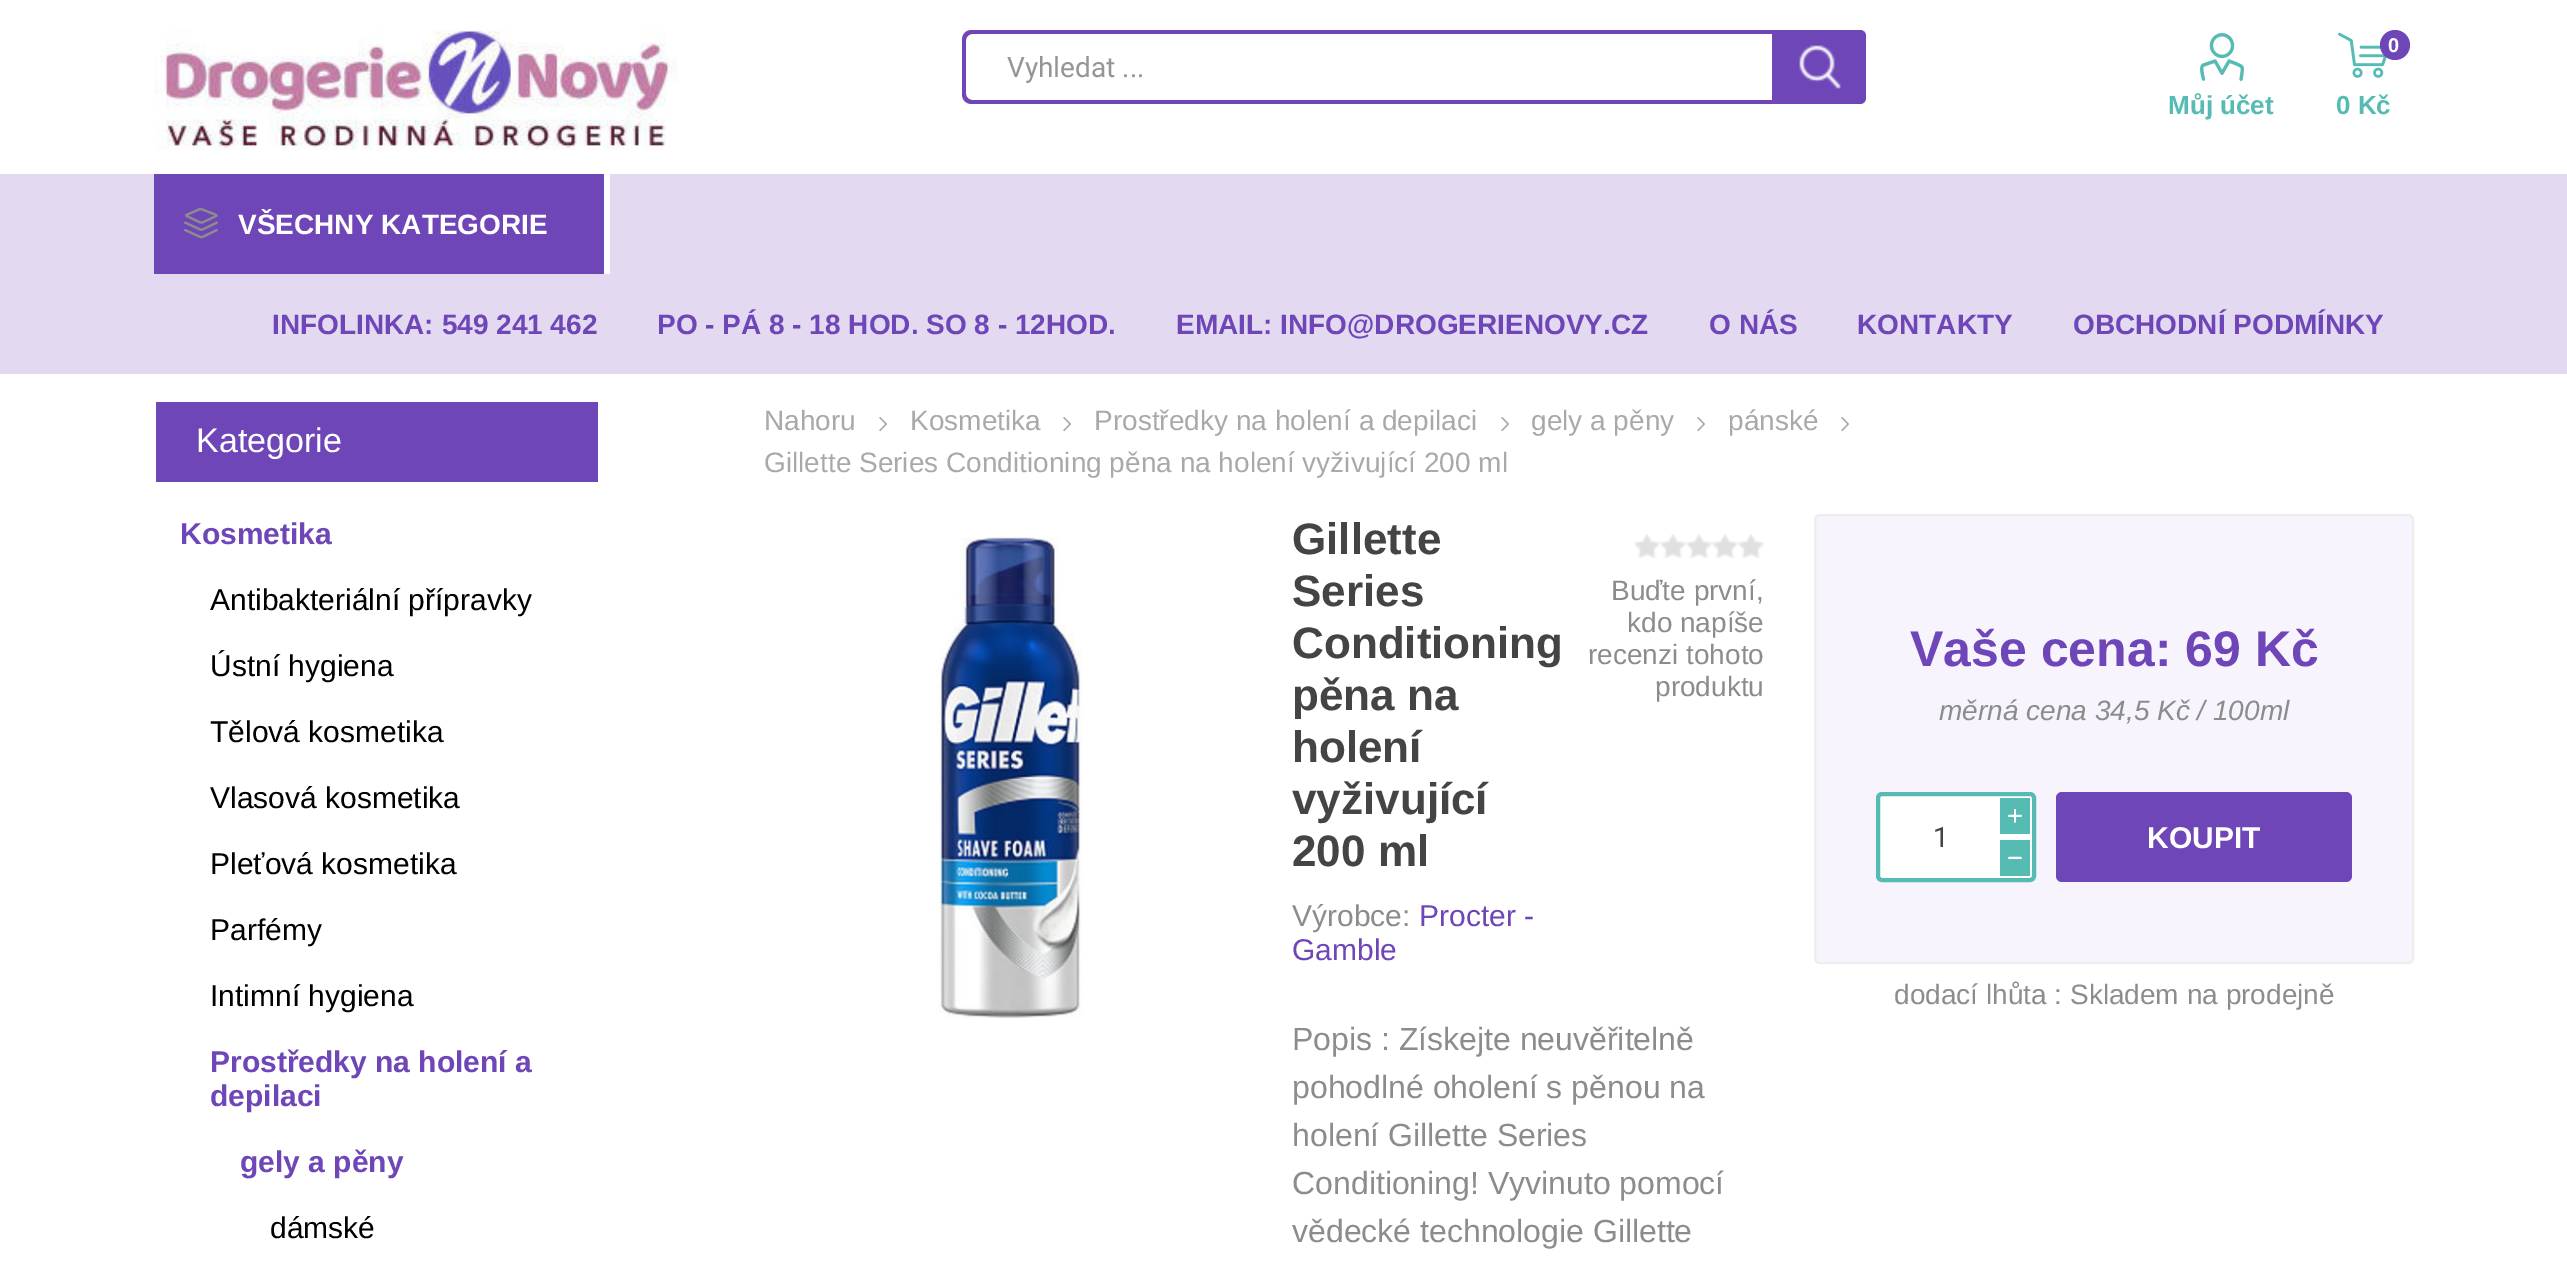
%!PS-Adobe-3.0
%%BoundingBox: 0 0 2567 1278
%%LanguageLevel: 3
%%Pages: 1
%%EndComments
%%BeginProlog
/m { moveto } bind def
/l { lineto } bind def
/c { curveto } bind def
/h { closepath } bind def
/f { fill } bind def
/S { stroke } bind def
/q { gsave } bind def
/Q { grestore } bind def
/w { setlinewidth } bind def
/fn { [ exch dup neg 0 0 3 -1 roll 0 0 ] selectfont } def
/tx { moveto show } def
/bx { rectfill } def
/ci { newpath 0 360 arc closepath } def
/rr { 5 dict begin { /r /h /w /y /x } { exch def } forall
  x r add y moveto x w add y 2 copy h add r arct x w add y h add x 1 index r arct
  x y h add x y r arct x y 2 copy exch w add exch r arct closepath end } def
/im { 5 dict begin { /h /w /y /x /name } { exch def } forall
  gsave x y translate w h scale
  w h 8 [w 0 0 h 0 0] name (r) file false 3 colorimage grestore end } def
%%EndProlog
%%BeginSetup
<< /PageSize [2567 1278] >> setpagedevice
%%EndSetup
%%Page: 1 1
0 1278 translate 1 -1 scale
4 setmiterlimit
1 setgray
0 0 2567 1278 bx
(image0.raw) 154 30 524 120 im
0.439 0.271 0.722 setrgbcolor
972 30 m 1772 30 l 1772 104 l 972 104 l 966 104 962 100 962 94 c 962 40 l 962 34 966 30 972 30 c h 972 34 m 1772 34 l 1772 100 l 972 100 l 969 100 966 97 966 94 c 966 40 l 966 37 969 34 972 34 c h eofill
/Roboto-Regular 28 fn
0.584 setgray
(Vyhledat ...) 1007 77 tx
0.431 0.275 0.722 setrgbcolor
1772 30 m 1860 30 l 1863.5 30 1866 32.5 1866 36 c 1866 98 l 1866 101.5 1863.5 104 1860 104 c 1772 104 l h f
(image1.raw) 1799 45 42 44 im
(image2.raw) 2200 33 44 48 im
/LiberationSans-Bold 26 fn
0.337 0.733 0.702 setrgbcolor
(Můj účet) 2168 114 tx
(image3.raw) 2338 32 49 46 im
0.431 0.275 0.722 setrgbcolor
2395 45 15 ci f
/LiberationSans-Bold 20 fn
1 setgray
(0) 2388 52 tx
/LiberationSans-Bold 26 fn
0.337 0.733 0.702 setrgbcolor
(0 Kč) 2336 114 tx
0.89 0.851 0.945 setrgbcolor
0 174 2567 200 bx
0.431 0.275 0.722 setrgbcolor
154 174 450 100 bx
1 setgray
604 174 6 100 bx
(image4.raw) 184 207 34 32 im
/LiberationSans-Bold 28 fn
(VŠECHNY KATEGORIE) 238 234 tx
0.431 0.275 0.722 setrgbcolor
(INFOLINKA: 549 241 462) 272 334 tx
(PO - PÁ 8 - 18 HOD. SO 8 - 12HOD.) 657 334 tx
(EMAIL: INFO@DROGERIENOVY.CZ) 1176 334 tx
(O NÁS) 1709 334 tx
(KONTAKTY) 1857 334 tx
(OBCHODNÍ PODMÍNKY) 2073 334 tx
156 402 442 80 bx
/LiberationSans-Regular 34 fn
1 setgray
(Kategorie) 196 452 tx
/LiberationSans-Bold 30 fn
0.431 0.275 0.722 setrgbcolor
(Kosmetika) 180 544 tx
/LiberationSans-Regular 30 fn
0 setgray
(Antibakteriální přípravky) 210 610 tx
(Ústní hygiena) 210 676 tx
(Tělová kosmetika) 210 742 tx
(Vlasová kosmetika) 210 808 tx
(Pleťová kosmetika) 210 874 tx
(Parfémy) 210 940 tx
(Intimní hygiena) 210 1006 tx
/LiberationSans-Bold 30 fn
0.431 0.275 0.722 setrgbcolor
(Prostředky na holení a) 210 1072 tx
(depilaci) 210 1106 tx
(gely a pěny) 240 1172 tx
/LiberationSans-Regular 30 fn
0 setgray
(dámské) 270 1238 tx
/LiberationSans-Regular 28 fn
0.663 setgray
(Nahoru) 764 430 tx
(image5.raw) 879 417 8 15 im
(Kosmetika) 910 430 tx
(image5.raw) 1063 417 8 15 im
(Prostředky na holení a depilaci) 1094 430 tx
(image5.raw) 1501 417 8 15 im
(gely a pěny) 1531 430 tx
(image5.raw) 1697 417 8 15 im
(pánské) 1728 430 tx
(image5.raw) 1841 417 8 15 im
(Gillette Series Conditioning pěna na holení vyživující 200 ml) 764 472 tx
(image6.raw) 935 537 148 482 im
/LiberationSans-Bold 44 fn
0.267 setgray
(Gillette) 1292 554 tx
(Series) 1292 606 tx
(Conditioning) 1292 658 tx
(pěna na) 1292 710 tx
(holení) 1292 762 tx
(vyživující) 1292 814 tx
(200 ml) 1292 866 tx
/LiberationSans-Regular 30 fn
0.549 setgray
(Výrobce:) 1292 926 tx
0.431 0.275 0.722 setrgbcolor
(Procter -) 1419 926 tx
(Gamble) 1292 960 tx
(image7.raw) 1634 534 130 24 im
/LiberationSans-Regular 28 fn
0.549 setgray
(Buďte první,) 1611 600 tx
(kdo napíše) 1627 632 tx
(recenzi tohoto) 1588 664 tx
(produktu) 1655 696 tx
0.969 0.957 0.992 setrgbcolor
1815 515 598 448 5 rr q f Q
0.933 setgray
2 w
S
/LiberationSans-Bold 50 fn
0.431 0.275 0.722 setrgbcolor
(Vaše cena: 69 Kč) 1910 666 tx
/LiberationSans-Italic 28 fn
0.549 setgray
(měrná cena 34,5 Kč / 100ml) 1939 720 tx
1 setgray
1878 794 156 86 4 rr q f Q
0.337 0.733 0.702 setrgbcolor
4 w
S
2000 798 30 36 bx
/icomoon-Regular 14 fn
1 setgray
(i) 2008 822 tx
/Roboto-Regular 28 fn
0.267 setgray
(1) 1933 847 tx
0.337 0.733 0.702 setrgbcolor
2000 840 30 36 bx
/icomoon-Regular 14 fn
1 setgray
(h) 2008 864 tx
0.431 0.275 0.722 setrgbcolor
2056 792 296 90 6 rr f
/LiberationSans-Bold 30 fn
1 setgray
(KOUPIT) 2147 848 tx
/LiberationSans-Regular 28 fn
0.549 setgray
(dodací lhůta : Skladem na prodejně) 1894 1004 tx
/LiberationSans-Regular 32 fn
(Popis : Získejte neuvěřitelně) 1292 1050 tx
(pohodlné oholení s pěnou na) 1292 1098 tx
(holení Gillette Series) 1292 1146 tx
(Conditioning! Vyvinuto pomocí) 1292 1194 tx
(vědecké technologie Gillette) 1292 1242 tx
showpage
%%EOF
